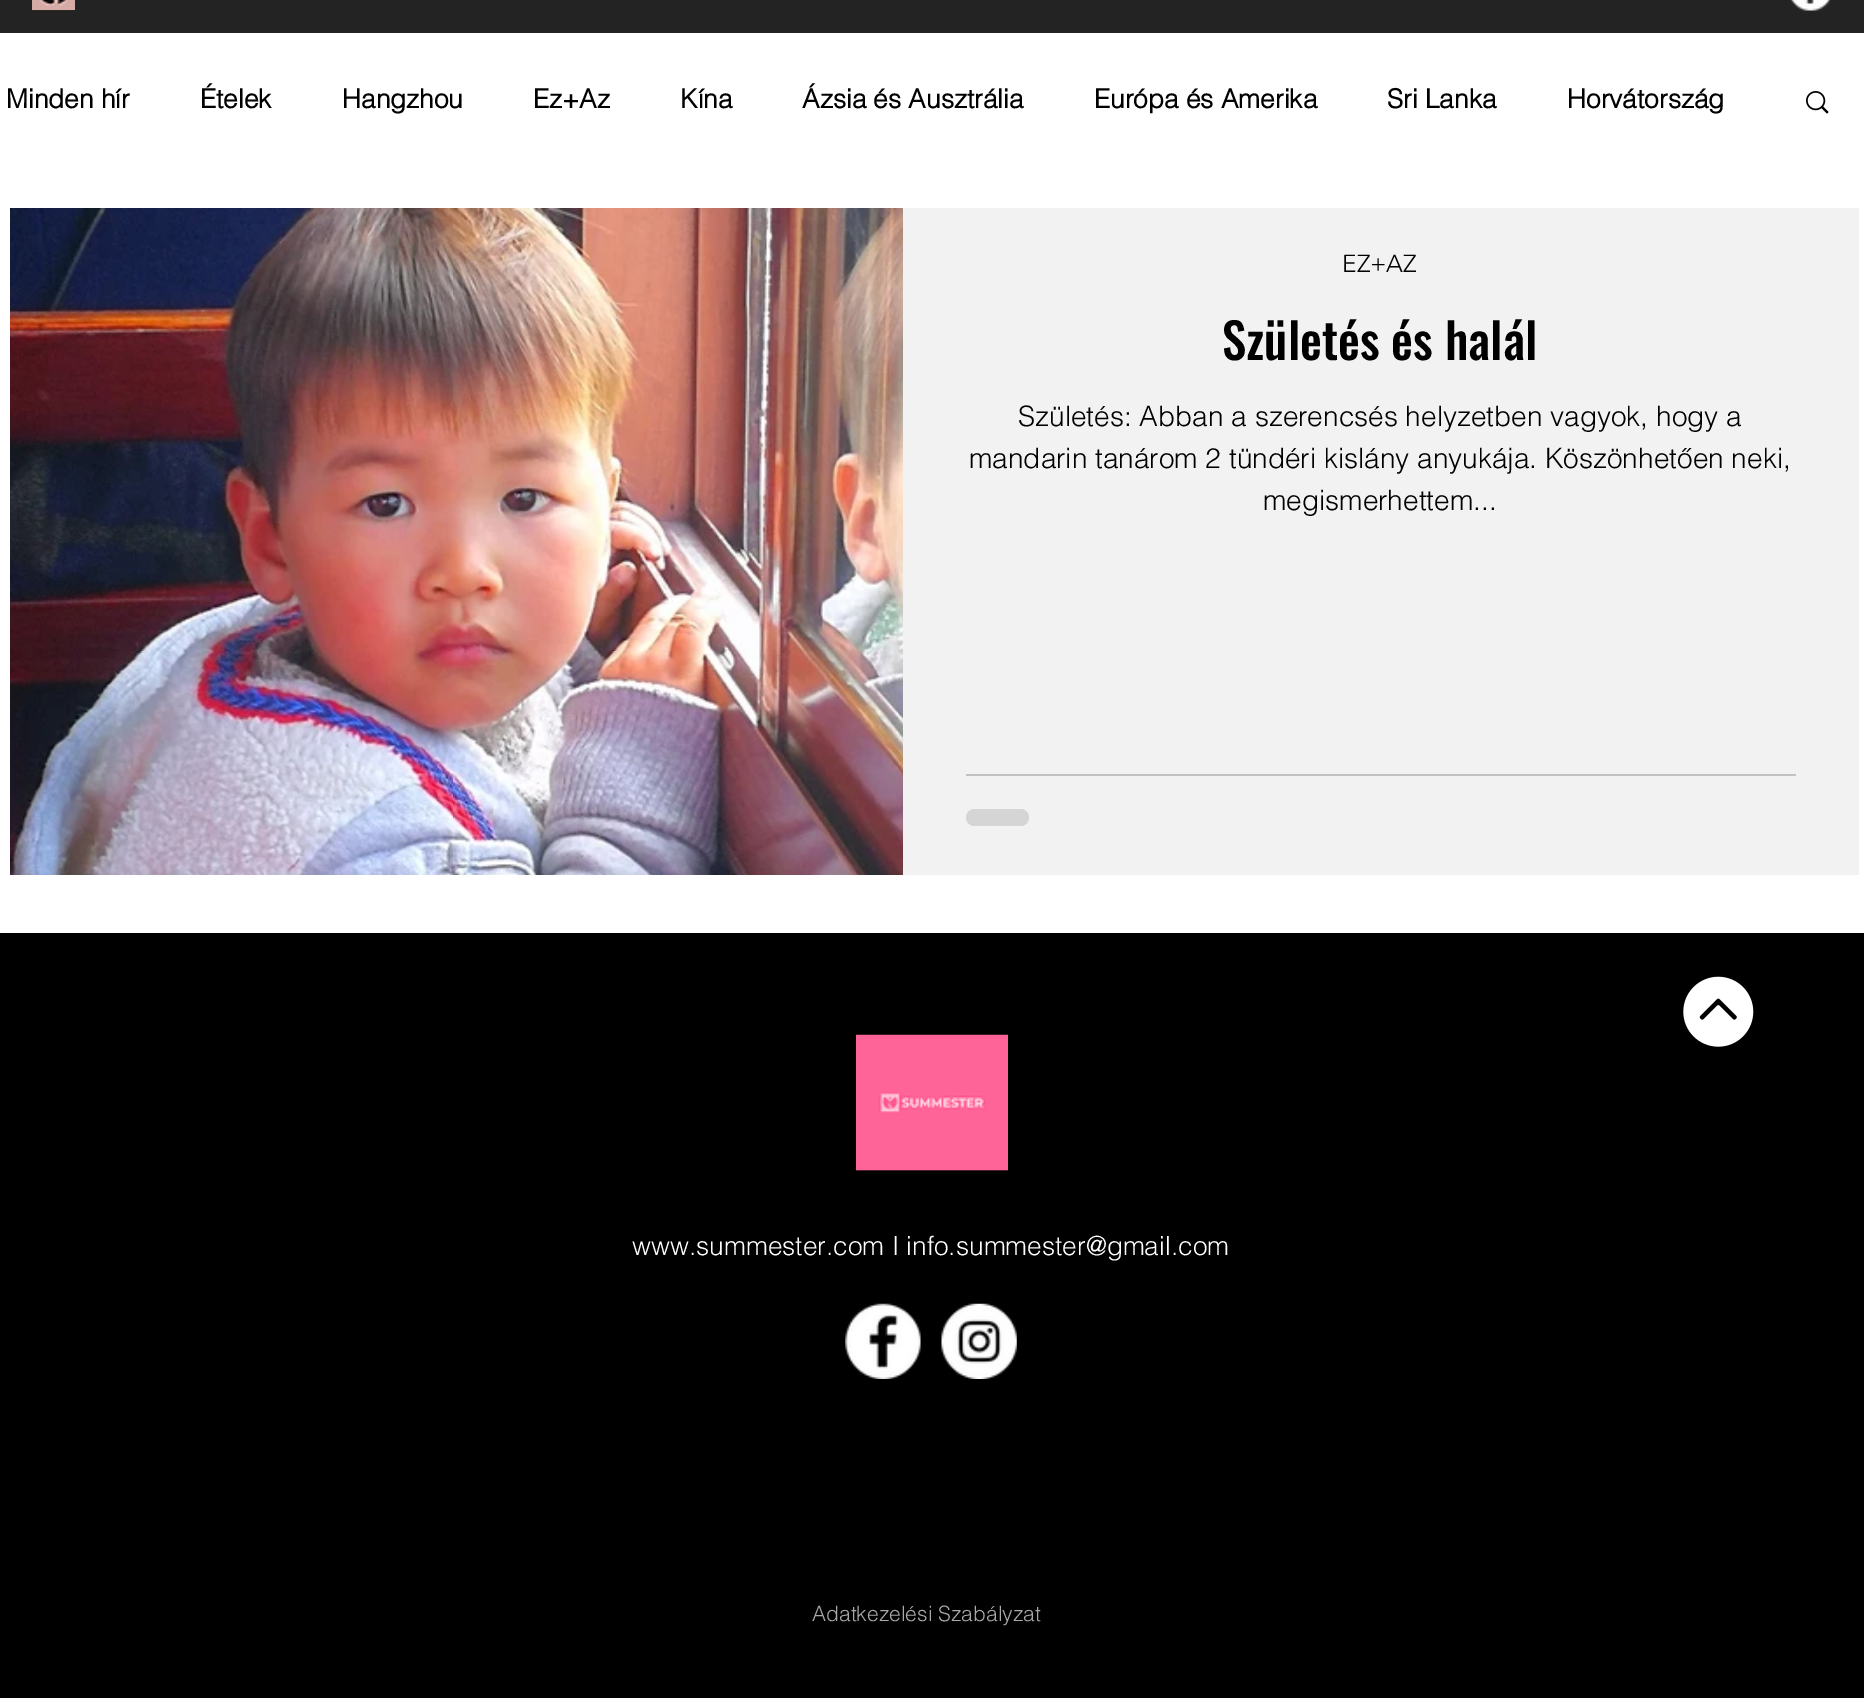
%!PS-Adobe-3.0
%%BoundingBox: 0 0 1864 1698
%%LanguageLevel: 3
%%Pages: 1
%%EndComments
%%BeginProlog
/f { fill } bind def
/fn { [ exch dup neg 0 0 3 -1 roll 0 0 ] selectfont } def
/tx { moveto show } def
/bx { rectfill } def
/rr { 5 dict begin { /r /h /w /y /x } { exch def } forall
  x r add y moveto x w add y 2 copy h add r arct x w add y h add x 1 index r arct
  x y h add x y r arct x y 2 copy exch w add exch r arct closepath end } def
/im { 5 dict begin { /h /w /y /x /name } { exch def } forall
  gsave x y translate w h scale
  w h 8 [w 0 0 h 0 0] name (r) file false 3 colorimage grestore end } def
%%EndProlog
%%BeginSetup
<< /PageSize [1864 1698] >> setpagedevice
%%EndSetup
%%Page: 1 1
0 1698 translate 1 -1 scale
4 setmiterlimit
1 setgray
0 0 1864 1698 bx
0.141 0.137 0.137 setrgbcolor
0 0 1864 33 bx
(image0.raw) 32 0 43 11 im
(image1.raw) 1790 0 41 11 im
/helvetica-Bold 26.25 fn
0 setgray
(Minden hír) 6 108 tx
(Ételek) 200 108 tx
(Hangzhou) 342 108 tx
(Ez+Az) 533 108 tx
(Kína) 680 108 tx
(Ázsia és Ausztrália) 802 108 tx
(Európa és Amerika) 1094 108 tx
(Sri Lanka) 1387 108 tx
(Horvátország) 1567 108 tx
(image2.raw) 1806 91 23 23 im
(image3.raw) 10 208 893 667 im
0.949 setgray
903 208 956 667 bx
/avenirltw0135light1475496-Light 24.5 fn
0 setgray
(EZ+AZ) 1342 272 tx
/Oswald-Medium 49 fn
(Születés és halál) 1222 360 tx
/helvetica-Light 28 fn
(Születés: Abban a szerencsés helyzetben vagyok, hogy a) 1018 426 tx
(mandarin tanárom 2 tündéri kislány anyukája. Köszönhetően neki,) 969 468 tx
(megismerhettem...) 1263 510 tx
0.761 setgray
966 774 830 2 bx
0.835 setgray
966 809 63 17 8.5 rr f
0 setgray
0 933 1864 765 bx
(image4.raw) 1683 976 71 71 im
(image5.raw) 856 1034 152 137 im
/helvetica-Light 26.25 fn
1 setgray
(www.summester.com I info.summester@gmail.com) 632 1255 tx
(image6.raw) 845 1303 76 76 im
(image7.raw) 941 1303 76 76 im
/helvetica-Light 21 fn
0.663 setgray
(Adatkezelési Szabályzat) 812 1621 tx
showpage
%%EOF
